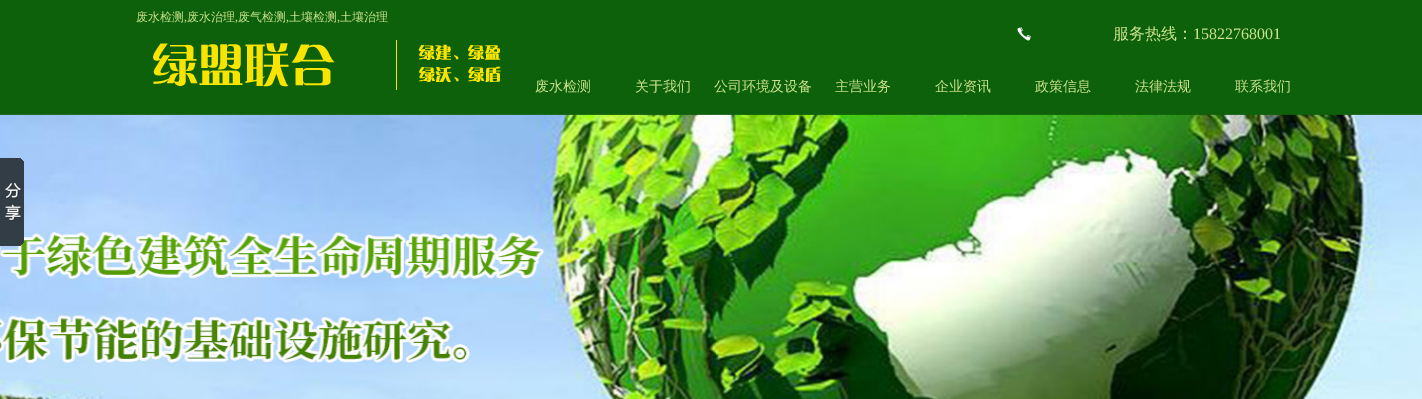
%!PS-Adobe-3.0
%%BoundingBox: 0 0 1422 399
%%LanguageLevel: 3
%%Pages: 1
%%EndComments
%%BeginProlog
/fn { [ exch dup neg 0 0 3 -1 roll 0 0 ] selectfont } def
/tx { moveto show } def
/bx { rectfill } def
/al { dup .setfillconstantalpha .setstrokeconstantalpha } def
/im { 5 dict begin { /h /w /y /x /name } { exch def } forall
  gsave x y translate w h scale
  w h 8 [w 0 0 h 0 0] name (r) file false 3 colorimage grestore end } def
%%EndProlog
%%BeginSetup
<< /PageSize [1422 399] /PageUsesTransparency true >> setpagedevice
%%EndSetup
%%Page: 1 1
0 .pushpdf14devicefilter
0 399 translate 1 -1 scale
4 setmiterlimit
1 setgray
0 0 1422 399 bx
(image0.raw) 0 0 1422 399 im
0.6 al
0.071 0.322 0 setrgbcolor
0 0 1422 115 bx
/WenQuanYiZenHei-Medium 12 fn
1 al
0.792 0.882 0.545 setrgbcolor
(废水检测) 136 21 tx
/LiberationSerif-Regular 12 fn
(,) 184 21 tx
/WenQuanYiZenHei-Medium 12 fn
(废水治理) 187 21 tx
/LiberationSerif-Regular 12 fn
(,) 235 21 tx
/WenQuanYiZenHei-Medium 12 fn
(废气检测) 238 21 tx
/LiberationSerif-Regular 12 fn
(,) 286 21 tx
/WenQuanYiZenHei-Medium 12 fn
(土壤检测) 289 21 tx
/LiberationSerif-Regular 12 fn
(,) 337 21 tx
/WenQuanYiZenHei-Medium 12 fn
(土壤治理) 340 21 tx
(image1.raw) 1017 27 14 14 im
/WenQuanYiZenHei-Medium 16 fn
(服务热线：) 1113 39 tx
/LiberationSerif-Regular 16 fn
(15822768001) 1193 39 tx
(image2.raw) 153 40 348 50 im
/WenQuanYiZenHei-Medium 14 fn
(废水检测) 535 91 tx
(关于我们) 635 91 tx
(公司环境及设备) 714 91 tx
(主营业务) 835 91 tx
(企业资讯) 935 91 tx
(政策信息) 1035 91 tx
(法律法规) 1135 91 tx
(联系我们) 1235 91 tx
(image3.raw) 0 158 24 88 im
.poppdf14devicefilter showpage
%%EOF
